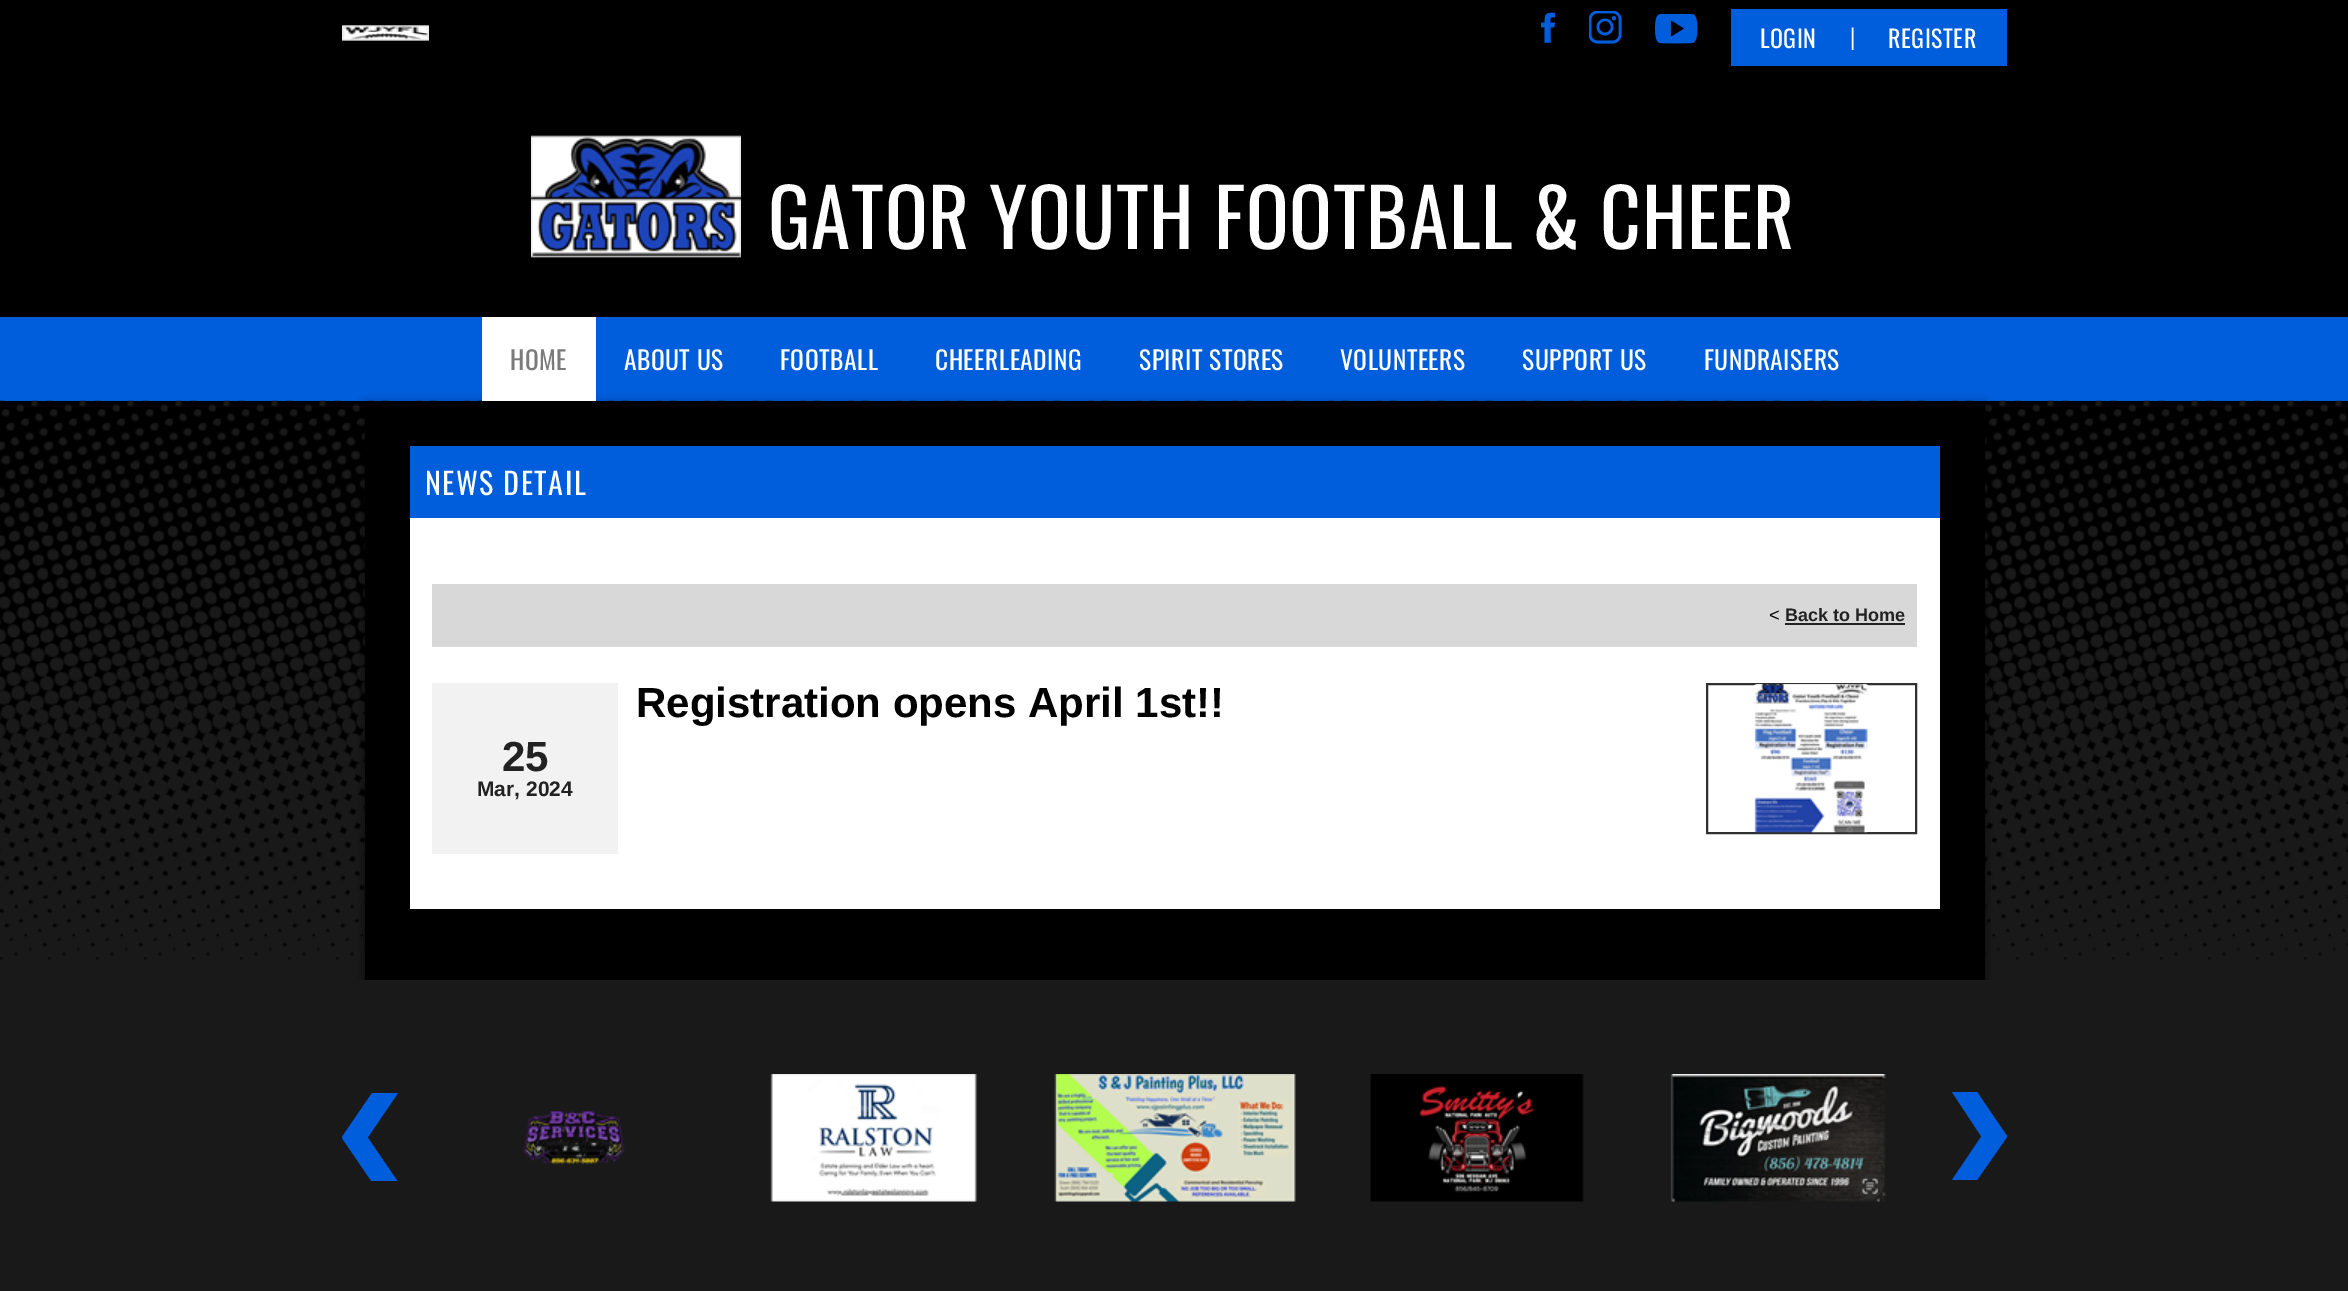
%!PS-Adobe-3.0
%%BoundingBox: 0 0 2348 1291
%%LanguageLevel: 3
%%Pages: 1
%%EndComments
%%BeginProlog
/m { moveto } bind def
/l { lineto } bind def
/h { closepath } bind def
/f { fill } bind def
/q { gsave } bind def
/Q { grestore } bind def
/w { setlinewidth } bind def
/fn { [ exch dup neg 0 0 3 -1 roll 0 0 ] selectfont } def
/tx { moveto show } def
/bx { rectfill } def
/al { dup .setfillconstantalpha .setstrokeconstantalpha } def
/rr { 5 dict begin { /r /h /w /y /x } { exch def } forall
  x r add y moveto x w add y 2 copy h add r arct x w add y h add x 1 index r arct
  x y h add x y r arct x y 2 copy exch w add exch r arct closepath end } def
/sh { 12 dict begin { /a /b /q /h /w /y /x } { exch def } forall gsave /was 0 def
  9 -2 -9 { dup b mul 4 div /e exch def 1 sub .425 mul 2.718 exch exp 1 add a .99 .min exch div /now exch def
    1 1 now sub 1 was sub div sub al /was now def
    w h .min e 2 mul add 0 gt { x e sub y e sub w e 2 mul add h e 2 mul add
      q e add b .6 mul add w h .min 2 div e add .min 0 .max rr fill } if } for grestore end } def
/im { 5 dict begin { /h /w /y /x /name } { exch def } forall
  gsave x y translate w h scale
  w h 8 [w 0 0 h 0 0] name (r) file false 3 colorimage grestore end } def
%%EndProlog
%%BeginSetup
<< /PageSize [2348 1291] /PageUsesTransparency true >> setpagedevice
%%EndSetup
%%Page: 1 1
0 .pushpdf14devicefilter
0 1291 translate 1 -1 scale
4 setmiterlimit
0 setgray
0 0 2348 1291 bx
(image0.raw) 342 25 87 16 im
(image1.raw) 1541 12 14 31 im
(image2.raw) 1589 11 33 33 im
(image3.raw) 1655 14 43 30 im
0 0.365 0.859 setrgbcolor
1731 9 276 57 bx
/Oswald-Regular 24 fn
1 setgray
1760 48 m 0.5 0 (LOGIN) ashow
/Lato-Regular 24 fn
(|) 1849 46 tx
/Oswald-Regular 24 fn
1888 48 m 0.5 0 (REGISTER) ashow
(image4.raw) 531 135 210 123 im
/Oswald-Regular 79.5 fn
768 249 m 0.75 0 (GATOR YOUTH FOOTBALL & CHEER) ashow
0 0.365 0.859 setrgbcolor
0 317 2348 84 bx
(image5.raw) 0 400 2348 580 im
0 setgray
365 405 1620 581 0 5 0.61 sh
1 setgray
482 317 114 84 bx
/Oswald-Regular 25.5 fn
0.482 setgray
510 370 m 0.5 0 (HOME) ashow
1 setgray
624 370 m 0.5 0 (ABOUT US) ashow
780 370 m 0.5 0 (FOOTBALL) ashow
935 370 m 0.5 0 (CHEERLEADING) ashow
1139 370 m 0.5 0 (SPIRIT STORES) ashow
1340 370 m 0.5 0 (VOLUNTEERS) ashow
1522 370 m 0.5 0 (SUPPORT US) ashow
1704 370 m 0.5 0 (FUNDRAISERS) ashow
0 setgray
365 401 1620 579 bx
0 0.365 0.859 setrgbcolor
410 446 1530 72 bx
/Oswald-Regular 30 fn
1 setgray
425 495 m 1.5 0 (NEWS DETAIL) ashow
410 518 1530 391 bx
0.847 setgray
432 584 1485 63 bx
/LiberationSans-Regular 18 fn
0 setgray
(<) 1769 621 tx
/LiberationSans-Bold 18 fn
0.133 setgray
(Back to Home) 1785 621 tx
1785 623 120 2 bx
/LiberationSans-Bold 42 fn
0 setgray
(Registration opens April 1st!!) 636 717 tx
0.188 setgray
2 w
1707 684 209 149 rectstroke
(image6.raw) 1754 684 114 149 im
0.949 setgray
432 683 186 171 bx
0.133 setgray
(25) 502 771 tx
/LiberationSans-Bold 21 fn
(Mar, 2024) 477 796 tx
0.098 setgray
0 980 2348 311 bx
q
342 1092 56 89 rectclip
0 0.365 0.859 setrgbcolor
398 1182 m 372 1182 l 342 1138 l 342 1137 l 372 1093 l 398 1093 l 368 1137 l 368 1138 l h f
Q
(image7.raw) 523 1110 102 55 im
(image8.raw) 770 1074 207 128 im
(image9.raw) 1054 1074 242 128 im
(image10.raw) 1370 1074 214 128 im
(image11.raw) 1670 1074 216 128 im
0 0.365 0.859 setrgbcolor
1952 1092 m 1977 1092 l 2007 1136 l 2007 1137 l 1977 1180 l 1952 1180 l 1981 1137 l 1981 1136 l h f
.poppdf14devicefilter showpage
%%EOF
